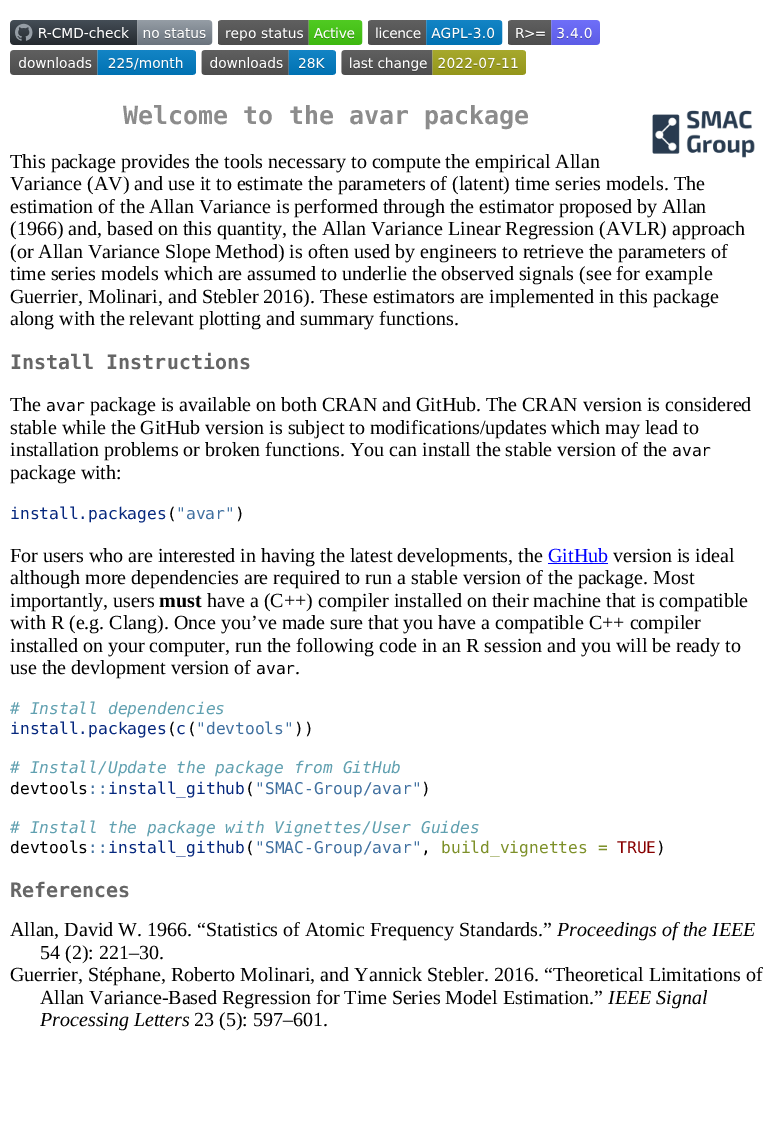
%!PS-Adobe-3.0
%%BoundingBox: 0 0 773 1142
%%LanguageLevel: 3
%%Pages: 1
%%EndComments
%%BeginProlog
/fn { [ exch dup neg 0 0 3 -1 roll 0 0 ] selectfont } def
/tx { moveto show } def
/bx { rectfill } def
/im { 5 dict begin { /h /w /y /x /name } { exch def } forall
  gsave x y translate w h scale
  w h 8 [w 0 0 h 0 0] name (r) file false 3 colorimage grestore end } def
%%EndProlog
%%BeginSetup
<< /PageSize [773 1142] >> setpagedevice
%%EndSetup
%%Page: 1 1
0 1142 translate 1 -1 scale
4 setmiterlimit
1 setgray
0 0 773 1142 bx
(image0.raw) 10 20 203 25 im
(image1.raw) 218 20 145 25 im
(image2.raw) 368 20 135 25 im
(image3.raw) 508 20 92 25 im
(image4.raw) 10 50 186 25 im
(image5.raw) 201 50 135 25 im
(image6.raw) 341 50 185 25 im
/DejaVuSansMono-Bold 25 fn
0.549 setgray
(Welcome to the avar package) 123 124 tx
(image7.raw) 652 110 103 48 im
/LiberationSerif-Regular 20 fn
0 setgray
(This package provides the tools necessary to compute the empirical Allan) 10 168 tx
(Variance \(AV\) and use it to estimate the parameters of \(latent\) time series models. The) 10 190 tx
(estimation of the Allan Variance is performed through the estimator proposed by Allan) 10 213 tx
(\(1966\) and, based on this quantity, the Allan Variance Linear Regression \(AVLR\) approach) 10 235 tx
(\(or Allan Variance Slope Method\) is often used by engineers to retrieve the parameters of) 10 258 tx
(time series models which are assumed to underlie the observed signals \(see for example) 10 280 tx
(Guerrier, Molinari, and Stebler 2016\). These estimators are implemented in this package) 10 303 tx
(along with the relevant plotting and summary functions.) 10 325 tx
/DejaVuSansMono-Bold 20 fn
0.4 setgray
(Install Instructions) 10 369 tx
/LiberationSerif-Regular 20 fn
0 setgray
(The) 10 411 tx
/DejaVuSansMono-Regular 16.25 fn
(avar) 46 411 tx
/LiberationSerif-Regular 20 fn
(package is available on both CRAN and GitHub. The CRAN version is considered) 90 411 tx
(stable while the GitHub version is subject to modifications/updates which may lead to) 10 434 tx
(installation problems or broken functions. You can install the stable version of the) 10 456 tx
/DejaVuSansMono-Regular 16.25 fn
(avar) 672 456 tx
/LiberationSerif-Regular 20 fn
(package with:) 10 479 tx
/DejaVuSansMono-Regular 16.25 fn
0.024 0.157 0.494 setrgbcolor
(install.packages) 10 519 tx
0 setgray
(\() 167 519 tx
0.251 0.439 0.627 setrgbcolor
("avar") 176 519 tx
0 setgray
(\)) 235 519 tx
/LiberationSerif-Regular 20 fn
(For users who are interested in having the latest developments, the) 10 562 tx
0 0 1 setrgbcolor
(GitHub) 548 562 tx
548 563 60 1 bx
0 setgray
(version is ideal) 613 562 tx
(although more dependencies are required to run a stable version of the package. Most) 10 584 tx
(importantly, users) 10 607 tx
/LiberationSerif-Bold 20 fn
(must) 159 607 tx
/LiberationSerif-Regular 20 fn
(have a \(C++\) compiler installed on their machine that is compatible) 207 607 tx
(with R \(e.g. Clang\). Once you’ve made sure that you have a compatible C++ compiler) 10 629 tx
(installed on your computer, run the following code in an R session and you will be ready to) 10 652 tx
(use the devlopment version of) 10 674 tx
/DejaVuSansMono-Regular 16.25 fn
(avar) 256 674 tx
/LiberationSerif-Regular 20 fn
(.) 295 674 tx
/DejaVuSansMono-Italic 16.25 fn
0.376 0.627 0.69 setrgbcolor
(# Install dependencies) 10 714 tx
/DejaVuSansMono-Regular 16.25 fn
0.024 0.157 0.494 setrgbcolor
(install.packages c) 10 734 tx
0 setgray
(\( \() 167 734 tx
0.251 0.439 0.627 setrgbcolor
("devtools") 196 734 tx
0 setgray
(\)\)) 294 734 tx
/DejaVuSansMono-Italic 16.25 fn
0.376 0.627 0.69 setrgbcolor
(# Install/Update the package from GitHub) 10 773 tx
/DejaVuSansMono-Regular 16.25 fn
0 setgray
(devtools) 10 794 tx
0.251 0.439 0.627 setrgbcolor
(::) 88 794 tx
0.024 0.157 0.494 setrgbcolor
(install_github) 108 794 tx
0 setgray
(\() 245 794 tx
0.251 0.439 0.627 setrgbcolor
("SMAC-Group/avar") 255 794 tx
0 setgray
(\)) 421 794 tx
/DejaVuSansMono-Italic 16.25 fn
0.376 0.627 0.69 setrgbcolor
(# Install the package with Vignettes/User Guides) 10 833 tx
/DejaVuSansMono-Regular 16.25 fn
0 setgray
(devtools) 10 853 tx
0.251 0.439 0.627 setrgbcolor
(::) 88 853 tx
0.024 0.157 0.494 setrgbcolor
(install_github) 108 853 tx
0 setgray
(\() 245 853 tx
0.251 0.439 0.627 setrgbcolor
("SMAC-Group/avar") 255 853 tx
0 setgray
(,) 421 853 tx
0.49 0.565 0.161 setrgbcolor
(build_vignettes =) 441 853 tx
0.533 0 0 setrgbcolor
(TRUE) 617 853 tx
0 setgray
(\)) 656 853 tx
/DejaVuSansMono-Bold 20 fn
0.4 setgray
(References) 10 897 tx
/LiberationSerif-Regular 20 fn
0 setgray
(Allan, David W. 1966. “Statistics of Atomic Frequency Standards.”) 10 936 tx
/LiberationSerif-Italic 20 fn
(Proceedings of the IEEE) 557 936 tx
/LiberationSerif-Regular 20 fn
(54 \(2\): 221–30.) 40 959 tx
(Guerrier, Stéphane, Roberto Molinari, and Yannick Stebler. 2016. “Theoretical Limitations of) 10 981 tx
(Allan Variance-Based Regression for Time Series Model Estimation.”) 40 1004 tx
/LiberationSerif-Italic 20 fn
(IEEE Signal) 608 1004 tx
(Processing Letters) 40 1026 tx
/LiberationSerif-Regular 20 fn
(23 \(5\): 597–601.) 194 1026 tx
showpage
%%EOF
